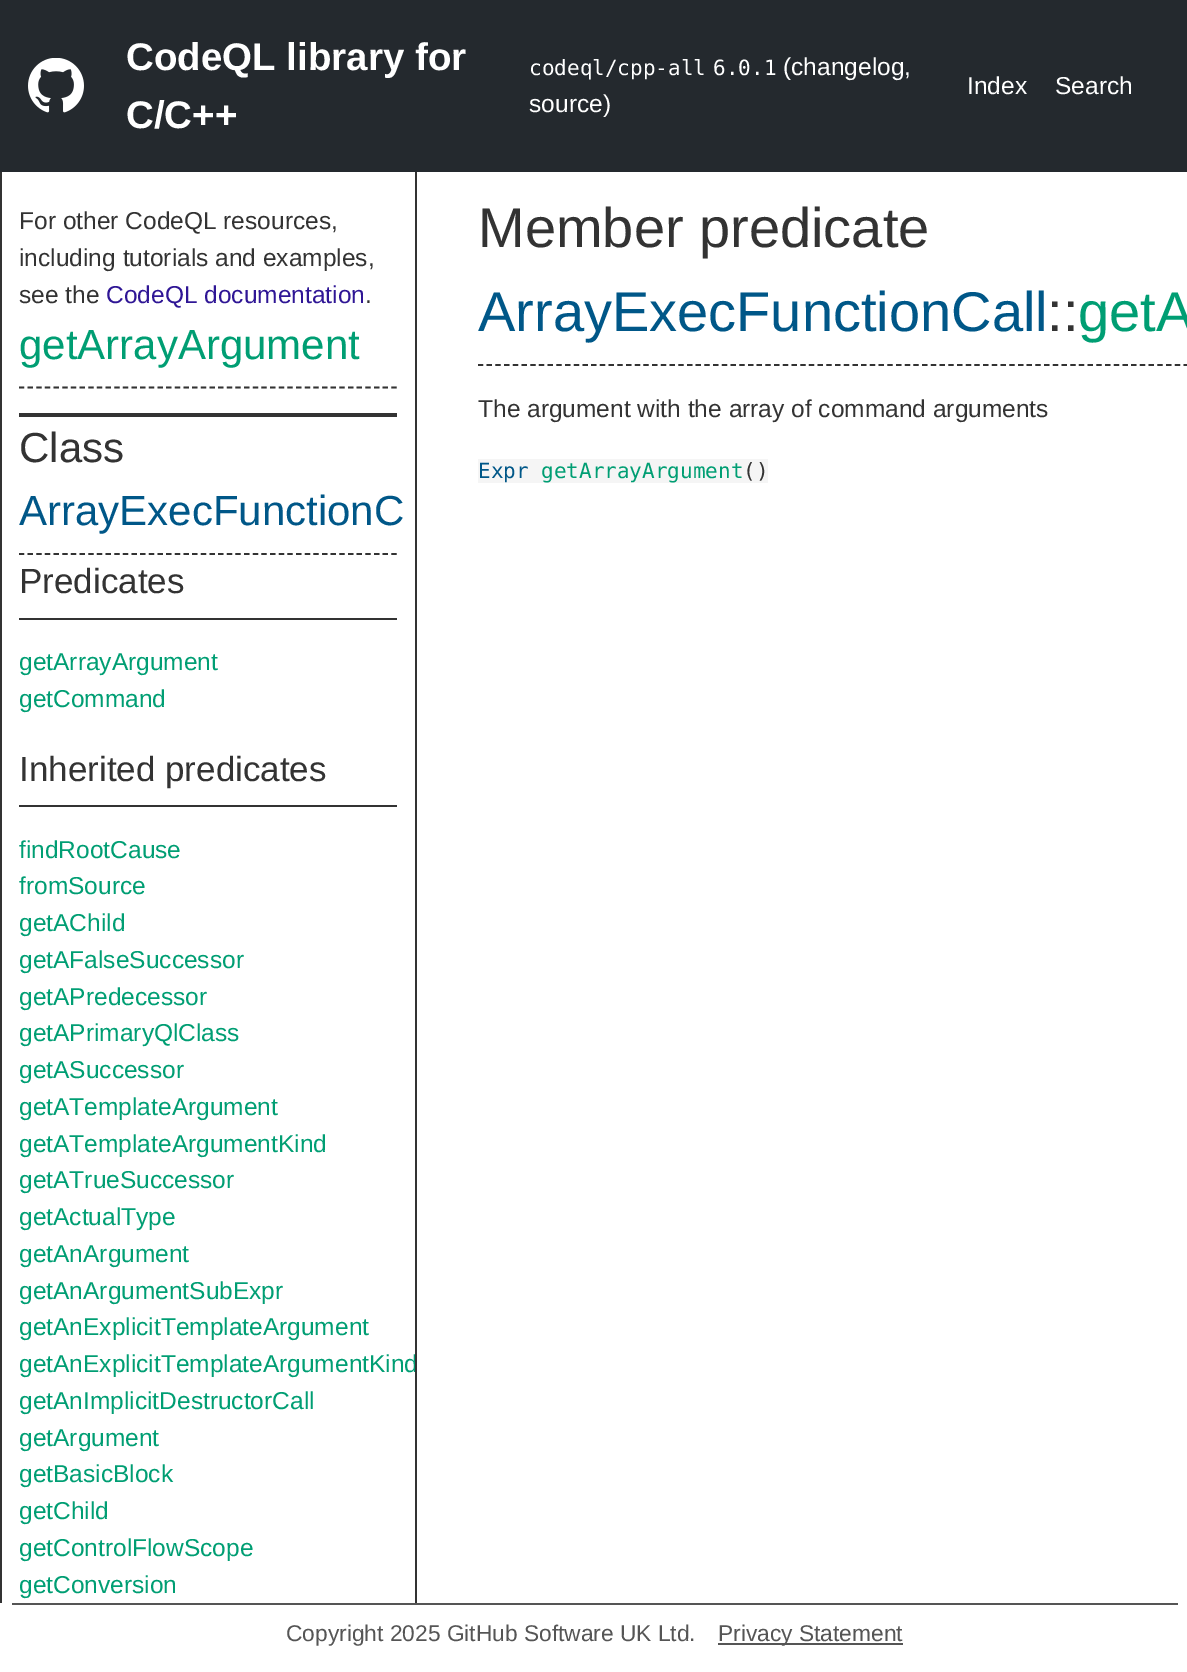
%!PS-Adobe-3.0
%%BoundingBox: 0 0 1187 1672
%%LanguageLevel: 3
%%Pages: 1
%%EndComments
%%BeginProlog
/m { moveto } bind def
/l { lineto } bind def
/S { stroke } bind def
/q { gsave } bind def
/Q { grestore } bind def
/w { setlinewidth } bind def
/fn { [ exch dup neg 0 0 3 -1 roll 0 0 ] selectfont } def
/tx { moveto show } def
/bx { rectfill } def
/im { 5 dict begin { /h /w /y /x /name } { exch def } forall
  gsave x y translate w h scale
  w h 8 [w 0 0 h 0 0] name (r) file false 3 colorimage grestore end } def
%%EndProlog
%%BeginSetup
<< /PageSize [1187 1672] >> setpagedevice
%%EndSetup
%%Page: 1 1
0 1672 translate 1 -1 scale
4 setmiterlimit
1 setgray
0 0 1187 1672 bx
0.141 0.161 0.18 setrgbcolor
0 0 1187 172 bx
(image0.raw) 28 58 56 55 im
/LiberationSans-Bold 38.5 fn
1 setgray
(CodeQL library for) 126 70 tx
(C/C++) 126 128 tx
/DejaVuSansMono-Regular 21 fn
(codeql/cpp-all) 529 75 tx
(6.0.1) 713 75 tx
/LiberationSans-Regular 24.5 fn
(\(changelog,) 783 75 tx
(source\)) 529 112 tx
(Index) 967 94 tx
(Search) 1055 94 tx
0.2 setgray
415 172 2 1431 bx
0 172 2 1431 bx
19 413 378 4 bx
(For other CodeQL resources,) 19 229 tx
(including tutorials and examples,) 19 266 tx
(see the) 19 303 tx
0.184 0.086 0.584 setrgbcolor
(CodeQL documentation) 106 303 tx
0.2 setgray
(.) 365 303 tx
1.8 w
[5.25 3.41] 0 setdash
19 387.5 m 397 387.5 l S
/LiberationSans-Regular 42 fn
0 0.62 0.451 setrgbcolor
(getArrayArgument) 19 359 tx
0.2 setgray
19 554 m 397 554 l S
(Class) 19 462 tx
0 0.341 0.533 setrgbcolor
(ArrayExecFunctionC) 19 525 tx
0.2 setgray
19 618 378 2 bx
/LiberationSans-Regular 35 fn
(Predicates) 19 593 tx
/LiberationSans-Regular 24.5 fn
0 0.62 0.451 setrgbcolor
(getArrayArgument) 19 670 tx
(getCommand) 19 707 tx
0.2 setgray
19 805 378 2 bx
/LiberationSans-Regular 35 fn
(Inherited predicates) 19 781 tx
/LiberationSans-Regular 24.5 fn
0 0.62 0.451 setrgbcolor
(findRootCause) 19 858 tx
(fromSource) 19 894 tx
(getAChild) 19 931 tx
(getAFalseSuccessor) 19 968 tx
(getAPredecessor) 19 1005 tx
(getAPrimaryQlClass) 19 1041 tx
(getASuccessor) 19 1078 tx
(getATemplateArgument) 19 1115 tx
(getATemplateArgumentKind) 19 1152 tx
(getATrueSuccessor) 19 1188 tx
(getActualType) 19 1225 tx
(getAnArgument) 19 1262 tx
(getAnArgumentSubExpr) 19 1299 tx
(getAnExplicitTemplateArgument) 19 1335 tx
q
2 172 413 1431 rectclip
(getAnExplicitTemplateArgumentKind) 19 1372 tx
Q
(getAnImplicitDestructorCall) 19 1409 tx
(getArgument) 19 1446 tx
(getBasicBlock) 19 1482 tx
(getChild) 19 1519 tx
(getControlFlowScope) 19 1556 tx
(getConversion) 19 1593 tx
0.2 setgray
[5.25 3.46] 0 setdash
478 365 m 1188 365 l S
/LiberationSans-Regular 56 fn
(Member predicate) 478 247 tx
0 0.341 0.533 setrgbcolor
(ArrayExecFunctionCall) 478 331 tx
0.2 setgray
(::) 1047 331 tx
0 0.62 0.451 setrgbcolor
(getA) 1078 331 tx
/LiberationSans-Regular 24.5 fn
0.2 setgray
(The argument with the array of command arguments) 478 417 tx
0.961 setgray
478 459 290 24 bx
/DejaVuSansMono-Regular 21 fn
0 0.341 0.533 setrgbcolor
(Expr) 478 478 tx
0 0.62 0.451 setrgbcolor
(getArrayArgument) 541 478 tx
0.2 setgray
(\(\)) 743 478 tx
0.333 setgray
12 1603 1166 2 bx
/LiberationSans-Regular 22.75 fn
(Copyright 2025 GitHub Software UK Ltd.) 286 1641 tx
718 1643 185 2 bx
(Privacy Statement) 718 1641 tx
showpage
%%EOF
